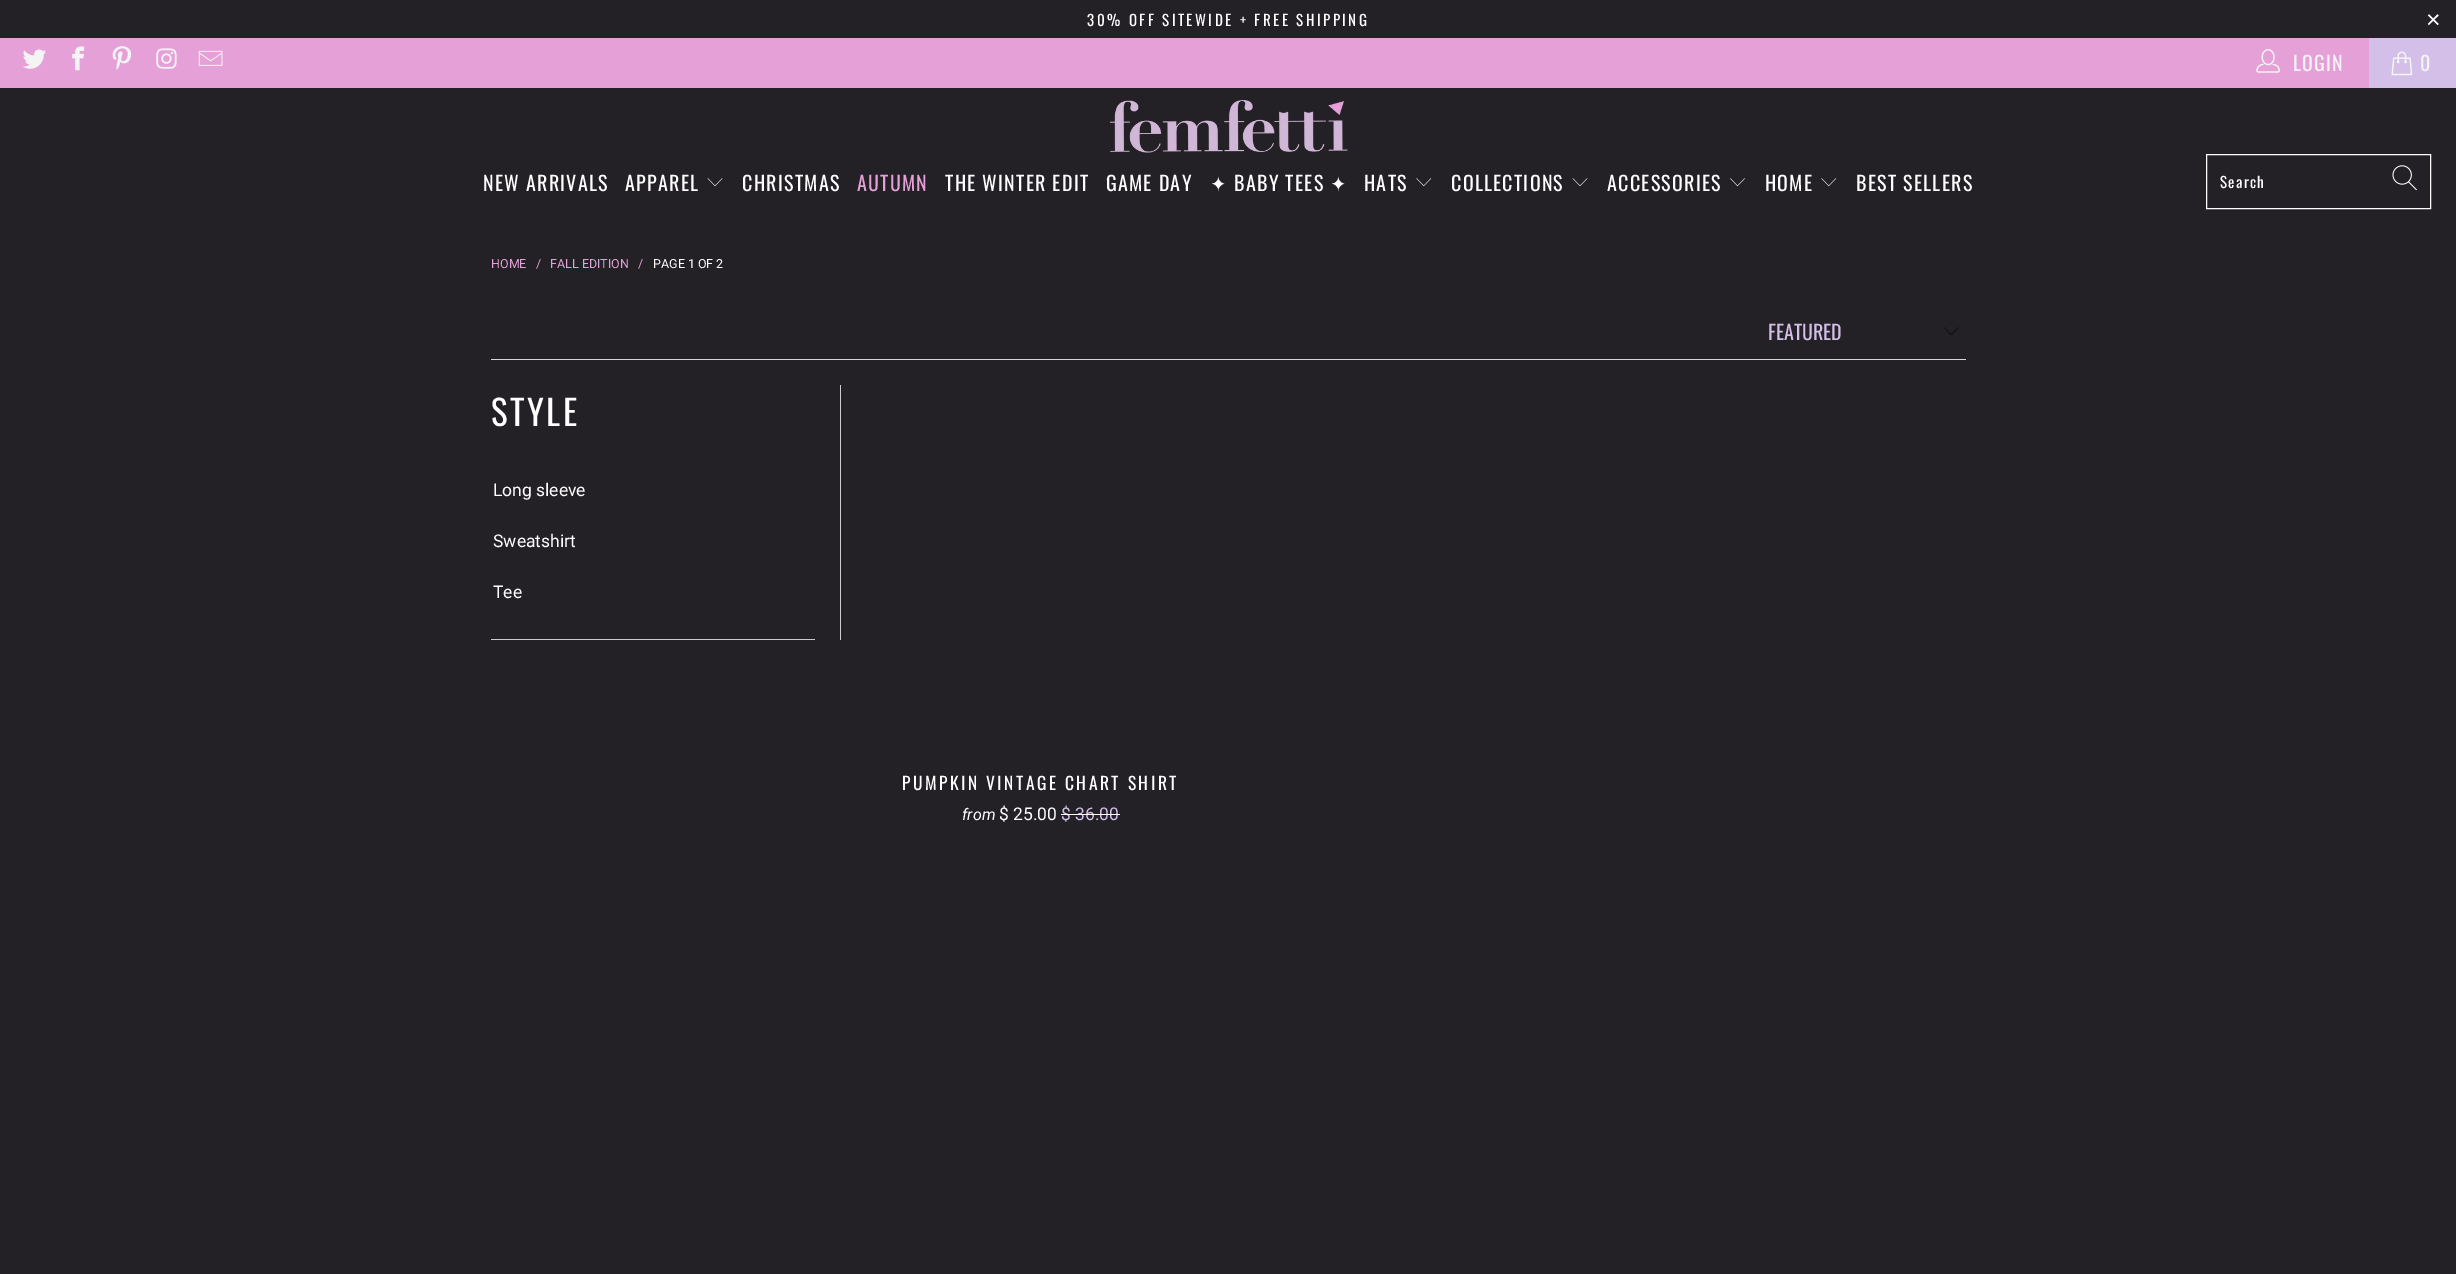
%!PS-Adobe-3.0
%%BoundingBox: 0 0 2456 1274
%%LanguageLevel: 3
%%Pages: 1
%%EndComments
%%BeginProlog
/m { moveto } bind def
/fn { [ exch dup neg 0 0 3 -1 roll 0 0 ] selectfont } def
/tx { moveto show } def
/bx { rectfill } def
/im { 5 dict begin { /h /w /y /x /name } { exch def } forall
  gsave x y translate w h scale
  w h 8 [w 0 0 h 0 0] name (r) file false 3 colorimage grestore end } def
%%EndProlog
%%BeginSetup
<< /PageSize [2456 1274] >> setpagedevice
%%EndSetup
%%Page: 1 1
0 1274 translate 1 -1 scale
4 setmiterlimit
0.137 0.125 0.149 setrgbcolor
0 0 2456 1274 bx
/Oswald-Regular 15 fn
1 setgray
1087 26 m 2.5 0 (30% OFF SITEWIDE + FREE SHIPPING) ashow
/LiberationSans-Regular 25 fn
2426 28 m 2.5 0 (×) ashow
0.898 0.627 0.843 setrgbcolor
0 38 2369 50 bx
(image0.raw) 22 49 24 20 im
(image1.raw) 72 46 13 25 im
(image2.raw) 112 46 20 24 im
(image3.raw) 156 48 21 21 im
(image4.raw) 198 50 25 16 im
(image5.raw) 2256 49 24 24 im
/Oswald-Regular 20 fn
0.957 setgray
2293 71 m 1.25 0 (LOGIN) ashow
0.827 0.749 0.91 setrgbcolor
2369 38 87 50 bx
(image6.raw) 2391 51 22 25 im
0.957 setgray
2420 71 m 1.25 0 (0) ashow
(image7.raw) 1110 100 238 53 im
1 setgray
483 191 m 1.25 0 (NEW ARRIVALS) ashow
625 191 m 1.25 0 (APPAREL) ashow
(image8.raw) 707 178 16 9 im
742 191 m 1.25 0 (CHRISTMAS) ashow
0.898 0.627 0.843 setrgbcolor
857 191 m 1.25 0 (AUTUMN) ashow
1 setgray
945 191 m 1.25 0 (THE WINTER EDIT) ashow
1106 191 m 1.25 0 (GAME DAY) ashow
/DejaVuSans-Regular 20 fn
1210 191 m 1.25 0 (✦) ashow
/Oswald-Regular 20 fn
1234 191 m 1.25 0 (BABY TEES) ashow
/DejaVuSans-Regular 20 fn
1330 191 m 1.25 0 (✦) ashow
/Oswald-Regular 20 fn
1364 191 m 1.25 0 (HATS) ashow
(image9.raw) 1416 178 16 9 im
1451 191 m 1.25 0 (COLLECTIONS) ashow
(image8.raw) 1572 178 16 9 im
1607 191 m 1.25 0 (ACCESSORIES) ashow
(image10.raw) 1730 178 15 9 im
1765 191 m 1.25 0 (HOME) ashow
(image9.raw) 1821 178 16 9 im
1856 191 m 1.25 0 (BEST SELLERS) ashow
2206.5 154.5 224 54 rectstroke
/Oswald-Regular 15 fn
2220 188 m 1.25 0 (Search) ashow
(image11.raw) 2392 165 25 26 im
/Roboto-Regular 12.5 fn
0.898 0.627 0.843 setrgbcolor
(HOME) 491 268 tx
(/) 536 268 tx
(FALL EDITION) 550 268 tx
(/) 638 268 tx
1 setgray
(PAGE 1 OF 2) 653 268 tx
(image12.raw) 1944 327 15 8 im
/Oswald-Regular 20 fn
0.827 0.749 0.91 setrgbcolor
(FEATURED) 1768 340 tx
0.843 setgray
491 359 1475 1 bx
0.8 setgray
840 385 1 255 bx
/Oswald-Regular 35 fn
1 setgray
491 426 m 2.5 0 (STYLE) ashow
/Roboto-Regular 17.5 fn
(Long sleeve) 493 496 tx
(Sweatshirt) 493 547 tx
(Tee) 493 598 tx
0.8 setgray
491 639 324 1 bx
/Oswald-Regular 17.5 fn
1 setgray
902 790 m 2.5 0 (PUMPKIN VINTAGE CHART SHIRT) ashow
/Roboto-Italic 16 fn
(from) 962 820 tx
/Roboto-Regular 17.5 fn
($ 25.00) 999 820 tx
0.827 0.749 0.91 setrgbcolor
($ 36.00) 1061 820 tx
1 setgray
1061 814 59 1 bx
showpage
%%EOF
